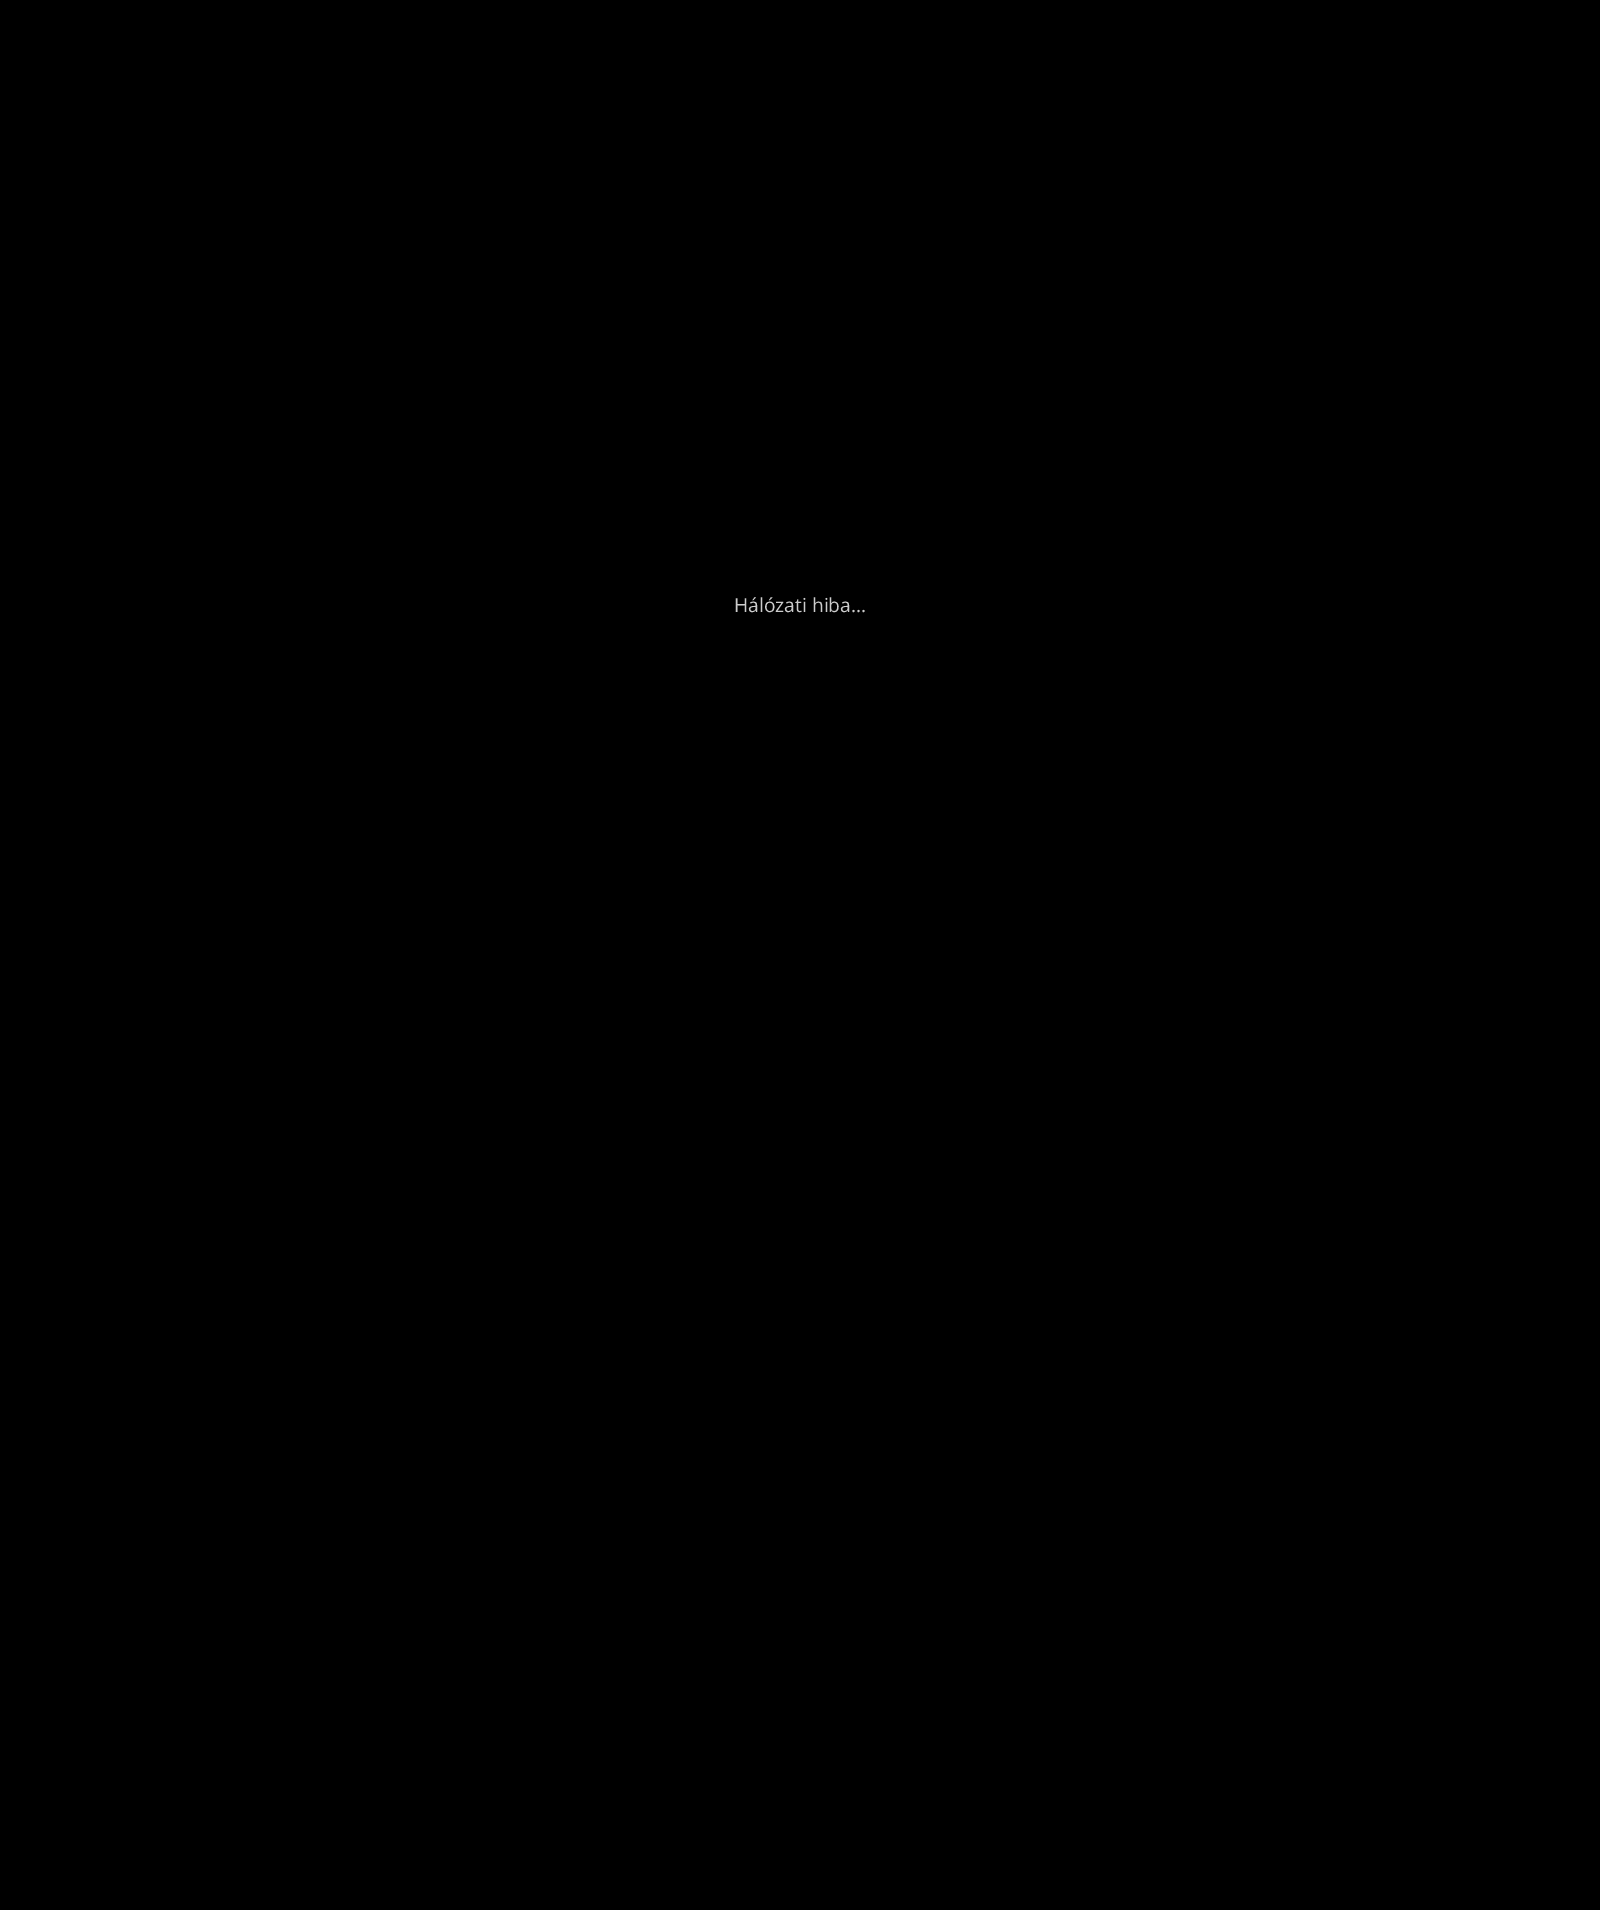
%!PS-Adobe-3.0
%%BoundingBox: 0 0 1600 1910
%%LanguageLevel: 3
%%Pages: 1
%%EndComments
%%BeginProlog
/fn { [ exch dup neg 0 0 3 -1 roll 0 0 ] selectfont } def
/tx { moveto show } def
/bx { rectfill } def
%%EndProlog
%%BeginSetup
<< /PageSize [1600 1910] >> setpagedevice
%%EndSetup
%%Page: 1 1
0 1910 translate 1 -1 scale
4 setmiterlimit
0 setgray
0 0 1600 1910 bx
/OpenSans-Regular 19.25 fn
0.8 setgray
(Hálózati hiba...) 734 612 tx
showpage
%%EOF
